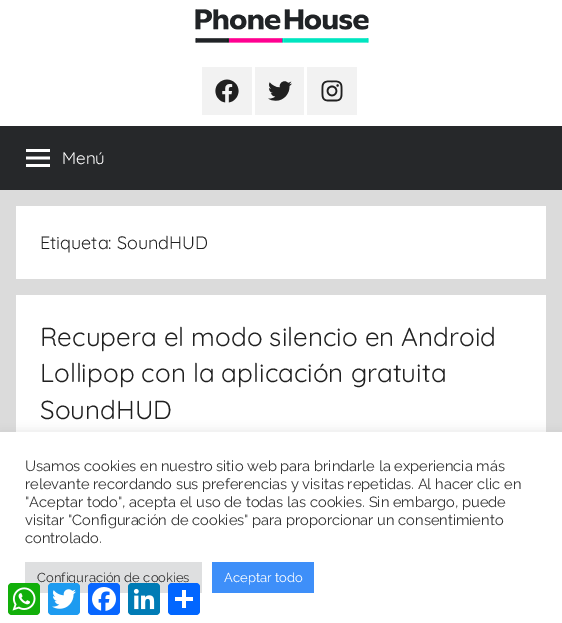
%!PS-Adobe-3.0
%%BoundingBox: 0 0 562 623
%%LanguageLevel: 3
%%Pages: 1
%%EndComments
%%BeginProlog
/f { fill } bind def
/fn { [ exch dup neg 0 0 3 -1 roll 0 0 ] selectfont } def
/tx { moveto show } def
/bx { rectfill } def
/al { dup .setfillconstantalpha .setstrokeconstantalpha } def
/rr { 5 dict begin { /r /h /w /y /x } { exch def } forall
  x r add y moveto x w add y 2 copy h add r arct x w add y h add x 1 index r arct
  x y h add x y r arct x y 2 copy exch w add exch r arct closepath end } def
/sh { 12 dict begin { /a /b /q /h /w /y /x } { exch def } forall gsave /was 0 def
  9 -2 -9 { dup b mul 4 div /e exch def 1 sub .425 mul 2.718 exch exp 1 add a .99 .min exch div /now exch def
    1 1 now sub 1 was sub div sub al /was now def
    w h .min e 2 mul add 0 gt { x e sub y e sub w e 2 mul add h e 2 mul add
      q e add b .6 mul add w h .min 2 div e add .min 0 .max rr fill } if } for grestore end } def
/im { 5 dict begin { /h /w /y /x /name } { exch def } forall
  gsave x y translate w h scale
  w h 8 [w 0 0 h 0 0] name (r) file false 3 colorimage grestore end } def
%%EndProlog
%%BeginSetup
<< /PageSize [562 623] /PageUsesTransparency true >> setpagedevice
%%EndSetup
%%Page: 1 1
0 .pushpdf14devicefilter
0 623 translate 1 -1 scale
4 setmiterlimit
0.859 setgray
0 0 562 623 bx
1 setgray
0 0 562 126 bx
(image0.raw) 195 9 174 34 im
0.949 setgray
202 67 50 48 bx
(image1.raw) 215 79 24 24 im
255 67 49 48 bx
(image2.raw) 268 81 24 20 im
307 67 50 48 bx
(image3.raw) 321 80 22 22 im
0.149 0.157 0.165 setrgbcolor
0 126 562 64 bx
(image4.raw) 26 149 24 18 im
/Quicksand-Regular 17 fn
1 setgray
(Menú) 62 164 tx
16 206 530 73 bx
/Quicksand-Regular 18 fn
0.125 setgray
(Etiqueta: SoundHUD) 40 249 tx
1 setgray
16 295 530 137 bx
/Quicksand-Regular 26 fn
0.125 setgray
(Recupera el modo silencio en Android) 40 346 tx
(Lollipop con la aplicación gratuita) 40 382 tx
(SoundHUD) 40 419 tx
0.675 0.671 0.671 setrgbcolor
0 431 562 191 0 5 0.3 sh
1 setgray
0 432 562 191 bx
/Raleway-Regular 14.65 fn
0.2 setgray
(Usamos cookies en nuestro sitio web para brindarle la experiencia más) 25 471 tx
(relevante recordando sus preferencias y visitas repetidas. Al hacer clic en) 25 489 tx
("Aceptar todo", acepta el uso de todas las cookies. Sin embargo, puede) 25 507 tx
(visitar "Configuración de cookies" para proporcionar un consentimiento) 25 525 tx
(controlado.) 25 543 tx
0.871 0.875 0.878 setrgbcolor
25 562 177 31 bx
/Raleway-Regular 13 fn
0.2 setgray
(Configuración de cookies) 37 582 tx
0.243 0.561 0.976 setrgbcolor
212 562 102 31 bx
1 setgray
(Aceptar todo) 224 582 tx
0.071 0.686 0.039 setrgbcolor
8 583 32 32 4 rr f
(image5.raw) 12 587 24 24 im
0.114 0.608 0.941 setrgbcolor
48 583 32 32 4 rr f
(image6.raw) 52 589 24 20 im
0.031 0.4 1 setrgbcolor
88 583 32 32 4 rr f
(image7.raw) 92 587 24 24 im
0 0.482 0.71 setrgbcolor
128 583 32 32 4 rr f
(image8.raw) 133 588 22 22 im
0.004 0.4 1 setrgbcolor
168 583 32 32 4 rr f
1 setgray
182 590 4 18 bx
175 597 18 4 bx
.poppdf14devicefilter showpage
%%EOF
